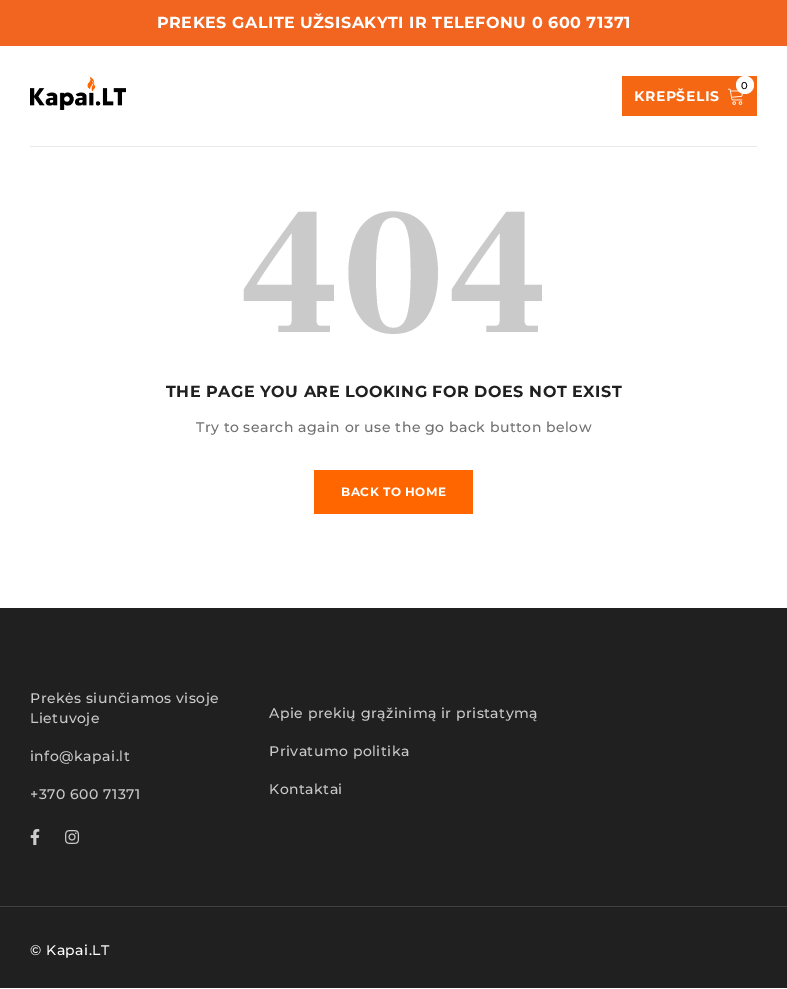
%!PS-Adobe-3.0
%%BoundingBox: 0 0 787 989
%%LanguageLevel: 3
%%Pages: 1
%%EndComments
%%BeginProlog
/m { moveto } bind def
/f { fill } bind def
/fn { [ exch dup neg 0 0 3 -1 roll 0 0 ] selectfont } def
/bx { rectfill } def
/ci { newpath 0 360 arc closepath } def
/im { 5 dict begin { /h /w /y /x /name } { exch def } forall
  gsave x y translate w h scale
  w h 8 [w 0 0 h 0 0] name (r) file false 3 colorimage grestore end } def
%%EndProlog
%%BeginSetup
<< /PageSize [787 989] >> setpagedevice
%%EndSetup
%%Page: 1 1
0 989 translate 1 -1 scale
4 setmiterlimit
1 setgray
0 0 787 989 bx
0.945 0.396 0.129 setrgbcolor
0 0 787 46 bx
/Montserrat-Bold 16 fn
1 setgray
157 28 m 0.5 0 (PREKES GALITE UŽSISAKYTI IR TELEFONU 0 600 71371) ashow
(image0.raw) 30 77 96 33 im
0.961 0.404 0.071 setrgbcolor
622 76 135 40 bx
(image1.raw) 727 88 16 17 im
1 setgray
745 85 9 ci f
/Montserrat-Medium 10 fn
0 setgray
741 89 m 0.5 0 (0) ashow
/Montserrat-Bold 14 fn
1 setgray
634 101 m 0.5 0 (KREPŠELIS) ashow
0.914 setgray
30 146 727 1 bx
/FrankRuhlLibre-Bold 180 fn
0.792 setgray
239 332 m 0.5 0 (404) ashow
/Montserrat-Bold 16 fn
0.125 setgray
166 397 m 0.5 0 (THE PAGE YOU ARE LOOKING FOR DOES NOT EXIST) ashow
/Montserrat-Medium 14 fn
0.439 setgray
196 432 m 0.5 0 (Try to search again or use the go back button below) ashow
1 0.4 0 setrgbcolor
314 470 159 44 bx
/Montserrat-Bold 12 fn
1 setgray
341 496 m 0.5 0 (BACK TO HOME) ashow
0.125 setgray
0 608 787 298 bx
/Montserrat-Medium 14 fn
0.792 setgray
30 703 m 0.5 0 (Prekės siunčiamos visoje) ashow
30 723 m 0.5 0 (Lietuvoje) ashow
30 761 m 0.5 0 (info@kapai.lt) ashow
30 799 m 0.5 0 (+370 600 71371) ashow
(image2.raw) 30 829 10 16 im
(image3.raw) 65 830 15 14 im
269 718 m 0.5 0 (Apie prekių grąžinimą ir pristatymą) ashow
269 756 m 0.5 0 (Privatumo politika) ashow
269 794 m 0.5 0 (Kontaktai) ashow
0.125 setgray
0 907 787 81 bx
0.255 setgray
0 906 787 1 bx
1 setgray
30 955 m 0.5 0 (© Kapai.LT) ashow
showpage
%%EOF
